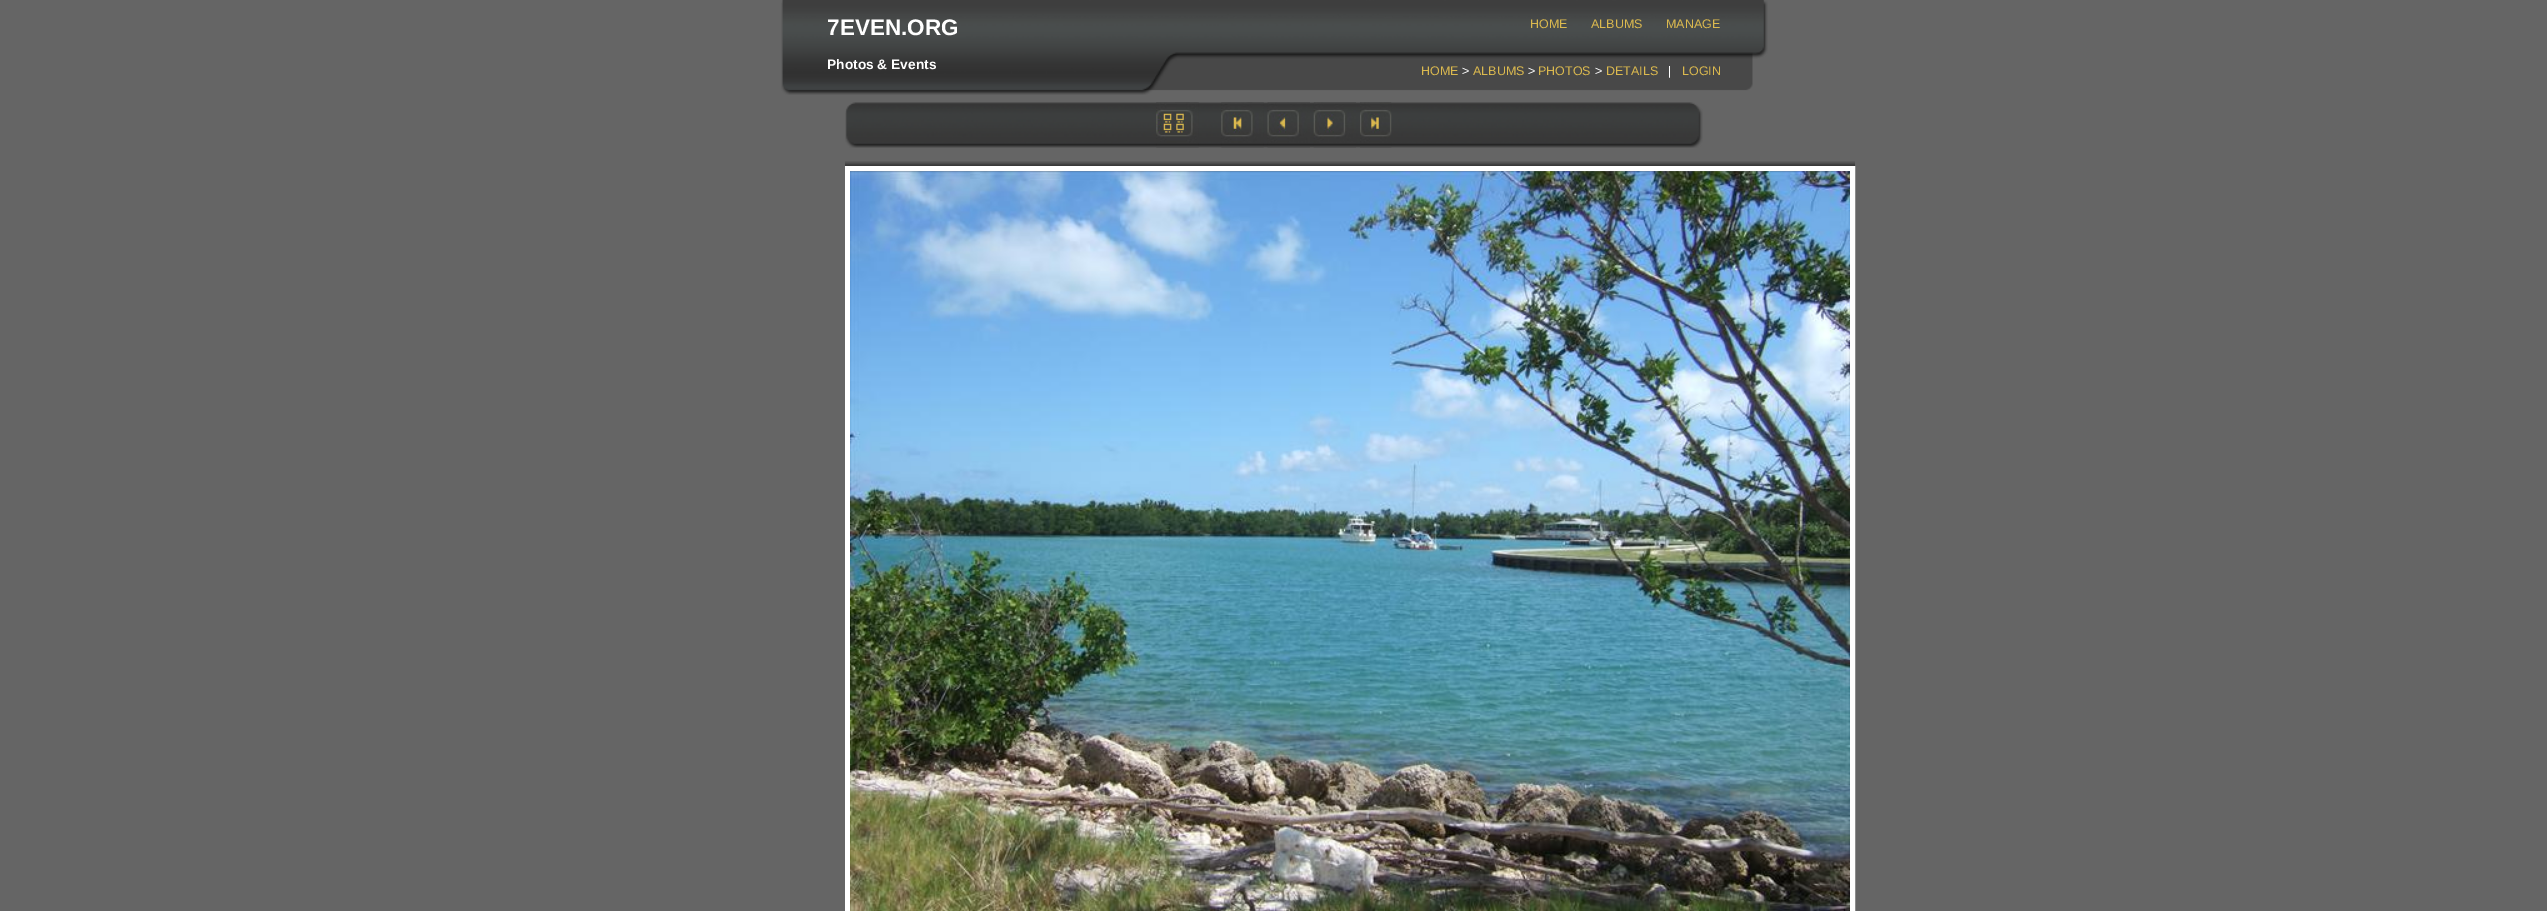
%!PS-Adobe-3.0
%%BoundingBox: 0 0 2547 911
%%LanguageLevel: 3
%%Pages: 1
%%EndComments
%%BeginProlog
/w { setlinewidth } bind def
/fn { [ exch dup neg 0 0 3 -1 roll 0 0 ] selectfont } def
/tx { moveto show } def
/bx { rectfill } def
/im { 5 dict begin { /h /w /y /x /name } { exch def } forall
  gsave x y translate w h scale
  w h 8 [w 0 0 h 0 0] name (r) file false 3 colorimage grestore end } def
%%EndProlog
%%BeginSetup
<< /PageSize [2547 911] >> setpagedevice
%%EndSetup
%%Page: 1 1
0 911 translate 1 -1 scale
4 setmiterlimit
0.396 setgray
0 0 2547 911 bx
(image0.raw) 781 0 987 95 im
/LiberationSans-Bold 22.5 fn
1 setgray
(7EVEN.ORG) 827 35 tx
/LiberationSans-Regular 12.5 fn
0.859 0.725 0.31 setrgbcolor
(HOME) 1530 28 tx
(ALBUMS) 1591 28 tx
(MANAGE) 1666 28 tx
/LiberationSans-Bold 13.75 fn
1 setgray
(Photos & Events) 827 69 tx
/LiberationSans-Regular 12.5 fn
0.859 0.725 0.31 setrgbcolor
(HOME) 1421 75 tx
1 setgray
(>) 1462 75 tx
0.859 0.725 0.31 setrgbcolor
(ALBUMS) 1473 75 tx
1 setgray
(>) 1528 75 tx
0.859 0.725 0.31 setrgbcolor
(PHOTOS) 1538 75 tx
1 setgray
(>) 1595 75 tx
0.859 0.725 0.31 setrgbcolor
(DETAILS) 1606 75 tx
1 setgray
(|) 1668 75 tx
0.859 0.725 0.31 setrgbcolor
(LOGIN) 1682 75 tx
(image1.raw) 845 102 858 46 im
(image2.raw) 1156 102 43 46 im
(image3.raw) 1221 102 43 46 im
(image4.raw) 1267 102 43 46 im
(image5.raw) 1313 102 43 46 im
(image6.raw) 1360 102 32 46 im
(image7.raw) 845 161 1010 5 im
1 setgray
5 w
847.5 168.5 1005 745 rectstroke
(image8.raw) 850 171 1000 740 im
showpage
%%EOF
